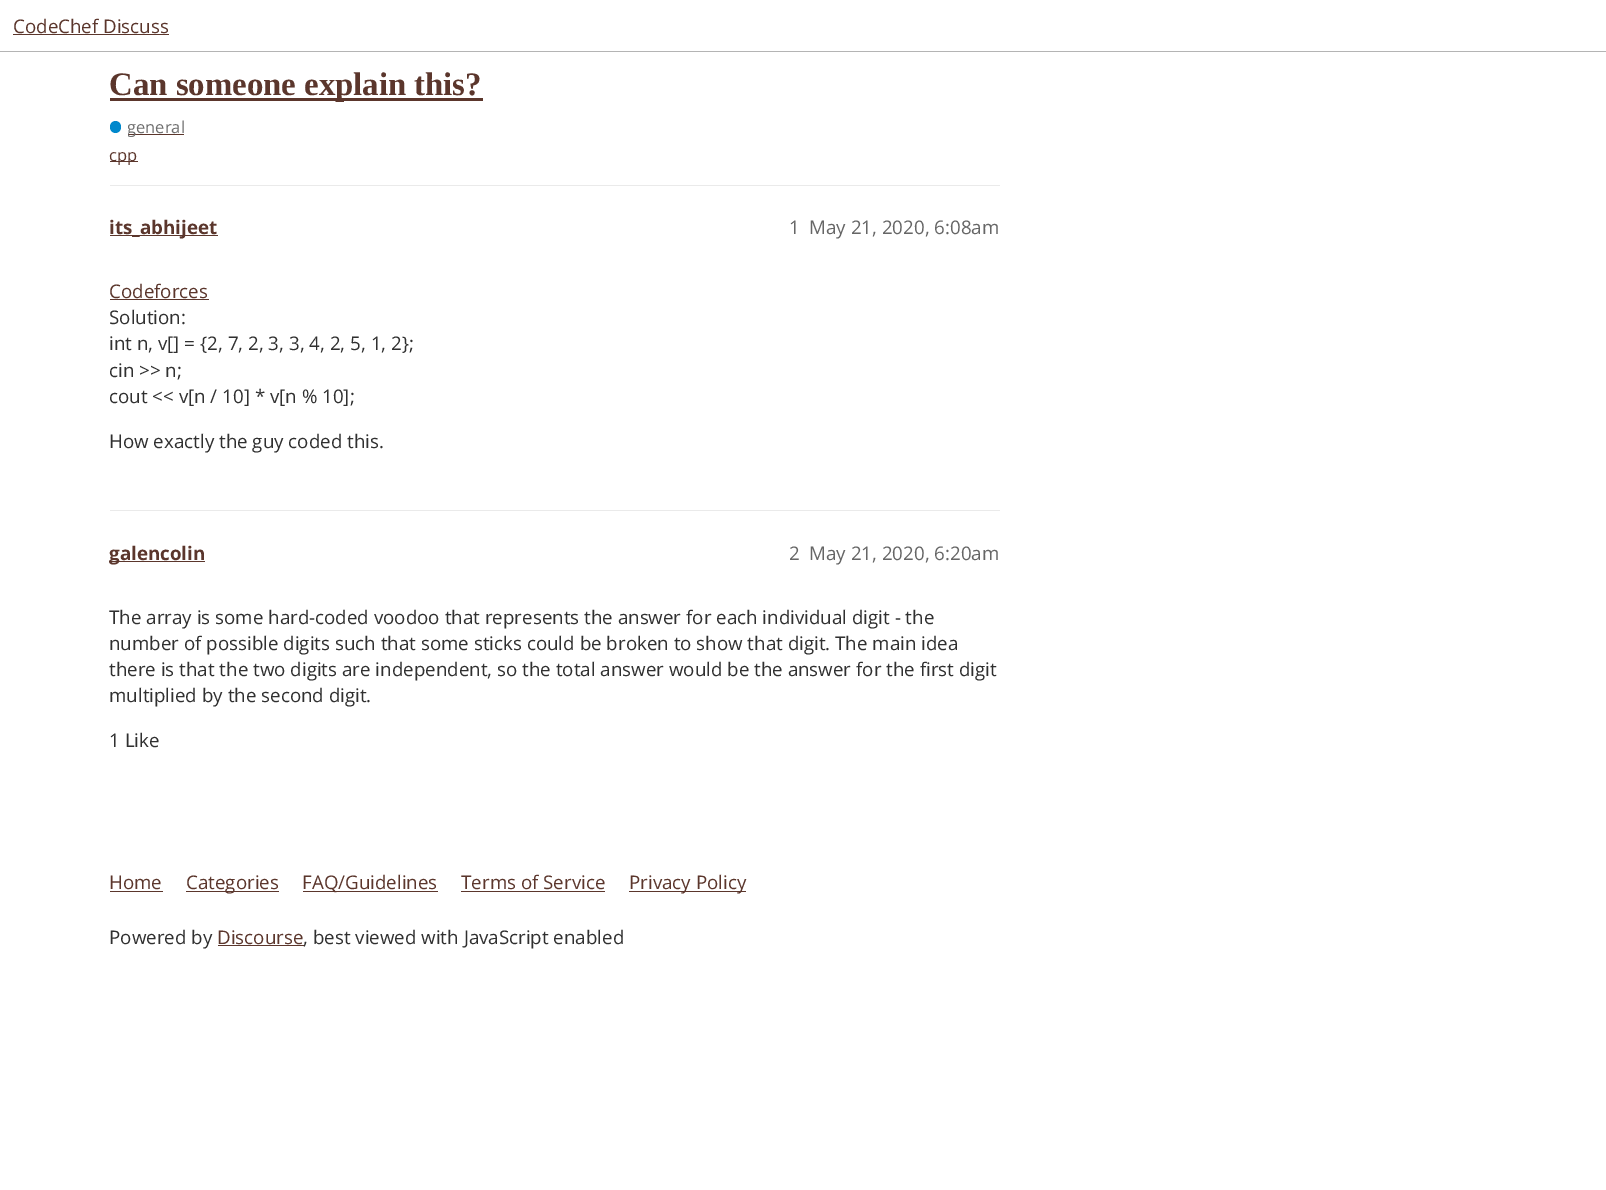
%!PS-Adobe-3.0
%%BoundingBox: 0 0 1606 1190
%%LanguageLevel: 3
%%Pages: 1
%%EndComments
%%BeginProlog
/f { fill } bind def
/q { gsave } bind def
/Q { grestore } bind def
/fn { [ exch dup neg 0 0 3 -1 roll 0 0 ] selectfont } def
/tx { moveto show } def
/bx { rectfill } def
/rr { 5 dict begin { /r /h /w /y /x } { exch def } forall
  x r add y moveto x w add y 2 copy h add r arct x w add y h add x 1 index r arct
  x y h add x y r arct x y 2 copy exch w add exch r arct closepath end } def
%%EndProlog
%%BeginSetup
<< /PageSize [1606 1190] >> setpagedevice
%%EndSetup
%%Page: 1 1
0 1190 translate 1 -1 scale
4 setmiterlimit
1 setgray
0 0 1606 1190 bx
0.706 setgray
0 51 1606 1 bx
/OpenSans-Regular 18.75 fn
0.357 0.212 0.173 setrgbcolor
(CodeChef Discuss) 13 33 tx
13 34 156 1 bx
110 98 373 3 bx
/LiberationSerif-Bold 32.8 fn
(Can someone explain this?) 109 95 tx
0 0.533 0.8 setrgbcolor
110 121 11 12 5.5 rr f
0.357 0.212 0.173 setrgbcolor
128 134 56 1 bx
q
128 115 56 23 rectclip
/OpenSans-Regular 16.5 fn
0.431 setgray
(general) 127 133 tx
Q
110 161 28 1 bx
/OpenSans-Regular 16.5 fn
(cpp) 109 161 tx
0.918 setgray
110 185 890 1 bx
0.357 0.212 0.173 setrgbcolor
110 235 108 1 bx
/OpenSans-Bold 18.75 fn
(its_abhijeet) 109 234 tx
/OpenSans-Regular 18.75 fn
0.4 setgray
(1) 789 234 tx
(May 21, 2020, 6:08am) 809 234 tx
0.357 0.212 0.173 setrgbcolor
(Codeforces) 109 298 tx
110 299 99 1 bx
0.188 setgray
(Solution:) 109 324 tx
(int n, v[] = {2, 7, 2, 3, 3, 4, 2, 5, 1, 2};) 109 350 tx
(cin >> n;) 109 377 tx
(cout << v[n / 10] * v[n % 10];) 109 403 tx
(How exactly the guy coded this.) 109 448 tx
0.918 setgray
110 510 890 1 bx
0.357 0.212 0.173 setrgbcolor
110 561 95 1 bx
/OpenSans-Bold 18.75 fn
(galencolin) 109 560 tx
/OpenSans-Regular 18.75 fn
0.4 setgray
(2) 789 560 tx
(May 21, 2020, 6:20am) 809 560 tx
0.188 setgray
(The array is some hard-coded voodoo that represents the answer for each individual digit - the) 109 624 tx
(number of possible digits such that some sticks could be broken to show that digit. The main idea) 109 650 tx
(there is that the two digits are independent, so the total answer would be the answer for the first digit) 109 676 tx
(multiplied by the second digit.) 109 702 tx
(1 Like) 109 747 tx
0.357 0.212 0.173 setrgbcolor
(Home) 109 889 tx
110 891 53 1 bx
186 891 93 1 bx
(Categories) 186 889 tx
303 891 135 1 bx
(FAQ/Guidelines) 302 889 tx
(Terms of Service) 461 889 tx
461 891 144 1 bx
629 891 117 1 bx
(Privacy Policy) 629 889 tx
0.188 setgray
(Powered by) 109 944 tx
0.357 0.212 0.173 setrgbcolor
(Discourse) 217 944 tx
218 945 86 1 bx
0.188 setgray
(, best viewed with JavaScript enabled) 303 944 tx
showpage
%%EOF
